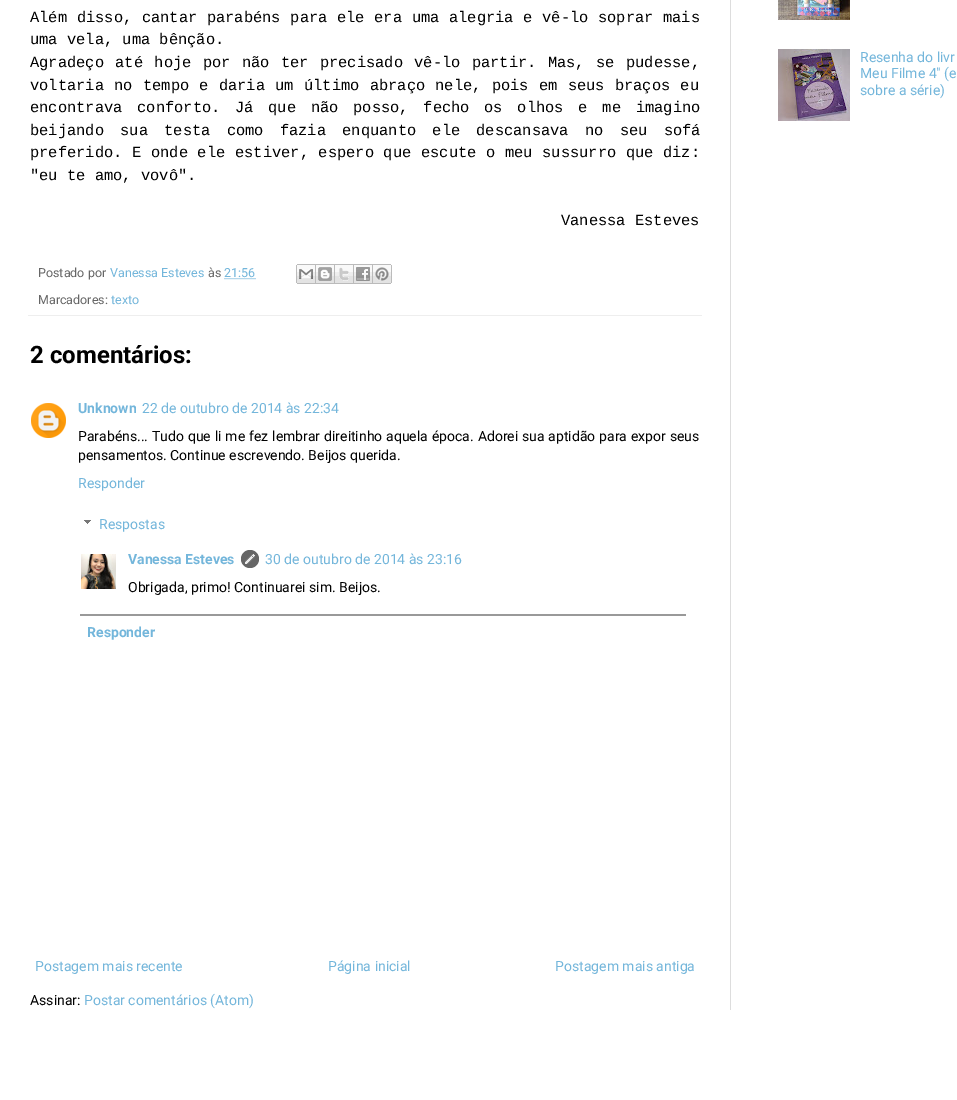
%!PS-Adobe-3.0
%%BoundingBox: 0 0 957 1100
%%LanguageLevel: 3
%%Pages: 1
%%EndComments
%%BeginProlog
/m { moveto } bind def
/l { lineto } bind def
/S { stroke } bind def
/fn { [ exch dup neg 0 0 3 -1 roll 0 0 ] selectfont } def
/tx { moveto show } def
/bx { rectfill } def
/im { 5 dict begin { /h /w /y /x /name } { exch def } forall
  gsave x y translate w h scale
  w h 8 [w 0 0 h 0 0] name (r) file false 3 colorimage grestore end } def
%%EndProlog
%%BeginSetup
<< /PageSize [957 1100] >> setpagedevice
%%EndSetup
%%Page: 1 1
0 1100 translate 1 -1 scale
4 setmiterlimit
1 setgray
0 0 957 1100 bx
0.867 setgray
730 0 1 1010 bx
/LiberationMono-Regular 15.4 fn
0 setgray
30 22 m 0.4 0 32 (Além disso, cantar parabéns para ele era uma alegria e vê-lo soprar mais) widthshow
(uma vela, uma bênção.) 30 44 tx
30 67 m 2.1 0 32 (Agradeço até hoje por não ter precisado vê-lo partir. Mas, se pudesse,) widthshow
30 90 m 1 0 32 (voltaria no tempo e daria um último abraço nele, pois em seus braços eu) widthshow
30 112 m 5.5 0 32 (encontrava conforto. Já que não posso, fecho os olhos e me imagino) widthshow
30 135 m 7 0 32 (beijando sua testa como fazia enquanto ele descansava no seu sofá) widthshow
30 157 m 0.4 0 32 (preferido. E onde ele estiver, espero que escute o meu sussurro que diz:) widthshow
("eu te amo, vovô".) 30 180 tx
(Vanessa Esteves) 561 225 tx
0.933 setgray
28 315 674 1 bx
/Roboto-Regular 12.5 fn
0.4 setgray
(Postado por) 38 277 tx
0.451 0.714 0.859 setrgbcolor
(Vanessa Esteves) 110 277 tx
0.4 setgray
(às) 208 277 tx
0.451 0.714 0.859 setrgbcolor
(21:56) 224 277 tx
[1 1] 0 setdash
224.5 278.5 m 256 278.5 l S
(image0.raw) 296 264 20 20 im
(image1.raw) 316 264 19 20 im
(image2.raw) 335 264 19 20 im
(image3.raw) 354 264 19 20 im
(image4.raw) 373 264 19 20 im
0.4 setgray
(Marcadores:) 38 304 tx
0.451 0.714 0.859 setrgbcolor
(texto) 111 304 tx
/Roboto-Bold 24 fn
0 setgray
(2 comentários:) 30 363 tx
(image5.raw) 31 403 35 35 im
/Roboto-Bold 14 fn
0.451 0.714 0.859 setrgbcolor
(Unknown) 78 413 tx
/Roboto-Regular 14 fn
(22 de outubro de 2014 às 22:34) 142 413 tx
0 setgray
78 441 m 0.4 0 32 (Parabéns... Tudo que li me fez lembrar direitinho aquela época. Adorei sua aptidão para expor seus) widthshow
(pensamentos. Continue escrevendo. Beijos querida.) 78 460 tx
0.451 0.714 0.859 setrgbcolor
(Responder) 78 488 tx
(image6.raw) 84 520 7 4 im
(Respostas) 99 529 tx
(image7.raw) 81 554 35 35 im
/Roboto-Bold 14 fn
(Vanessa Esteves) 128 564 tx
(image8.raw) 241 550 18 18 im
/Roboto-Regular 14 fn
(30 de outubro de 2014 às 23:16) 265 564 tx
0 setgray
(Obrigada, primo! Continuarei sim. Beijos.) 128 592 tx
0.6 setgray
80 614 606 2 bx
/Roboto-Bold 14 fn
0.451 0.714 0.859 setrgbcolor
(Responder) 87 637 tx
/Roboto-Regular 14 fn
(Postagem mais recente) 35 971 tx
(Página inicial) 328 971 tx
(Postagem mais antiga) 555 971 tx
0 setgray
(Assinar:) 30 1005 tx
0.451 0.714 0.859 setrgbcolor
(Postar comentários \(Atom\)) 84 1005 tx
(image9.raw) 778 0 72 20 im
(image10.raw) 778 49 72 72 im
(Resenha do livr) 860 62 tx
(Meu Filme 4" \(e) 860 78 tx
(sobre a série\)) 860 95 tx
showpage
%%EOF
